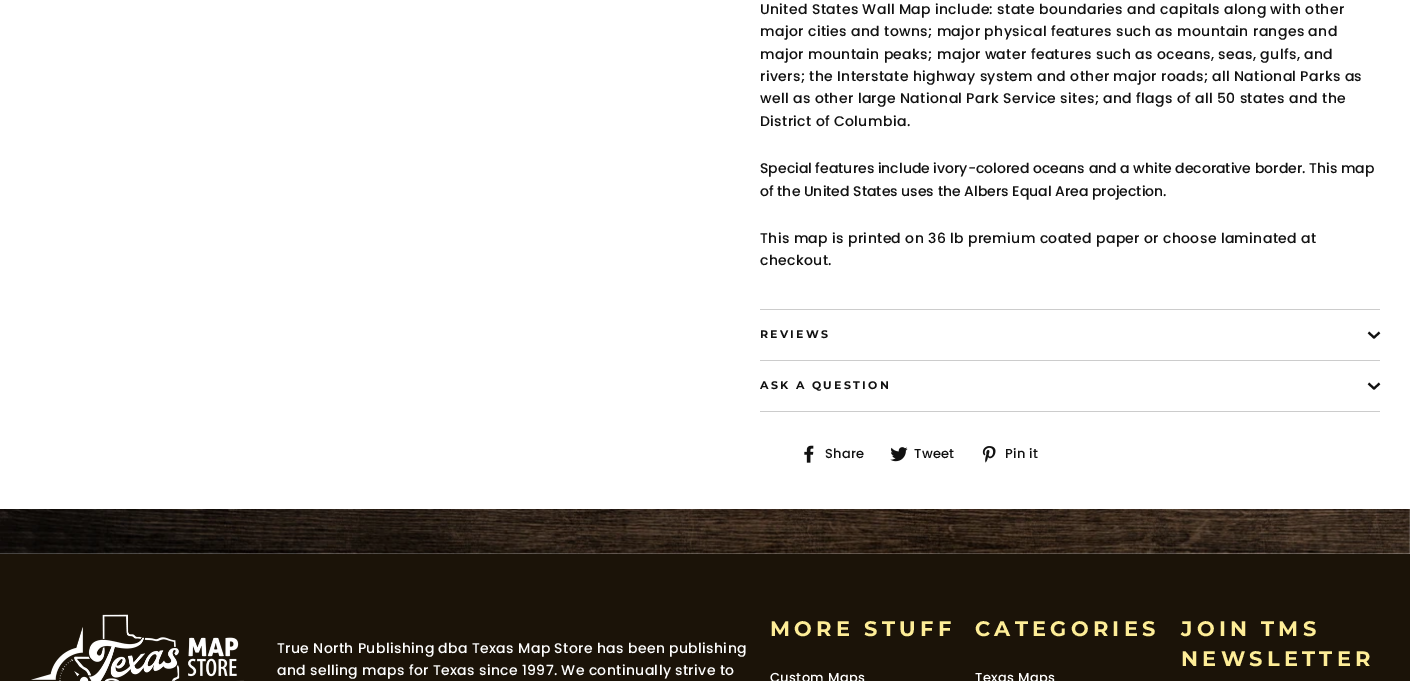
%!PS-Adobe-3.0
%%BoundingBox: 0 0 1410 681
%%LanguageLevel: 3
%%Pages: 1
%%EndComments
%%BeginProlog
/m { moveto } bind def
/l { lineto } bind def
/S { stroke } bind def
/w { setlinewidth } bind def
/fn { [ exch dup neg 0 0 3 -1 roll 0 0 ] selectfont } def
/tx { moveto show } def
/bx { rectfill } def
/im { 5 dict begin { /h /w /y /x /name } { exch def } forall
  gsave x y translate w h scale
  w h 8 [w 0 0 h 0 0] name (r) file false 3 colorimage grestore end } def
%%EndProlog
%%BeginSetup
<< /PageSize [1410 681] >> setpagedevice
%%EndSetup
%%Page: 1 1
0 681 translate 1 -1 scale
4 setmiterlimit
1 setgray
0 0 1410 681 bx
/Poppins-Medium 14 fn
0.067 setgray
760 14 m 0.35 0 (United States Wall Map include: state boundaries and capitals along with other) ashow
760 36 m 0.35 0 (major cities and towns; major physical features such as mountain ranges and) ashow
760 59 m 0.35 0 (major mountain peaks; major water features such as oceans, seas, gulfs, and) ashow
760 81 m 0.35 0 (rivers; the Interstate highway system and other major roads; all National Parks as) ashow
760 103 m 0.35 0 (well as other large National Park Service sites; and flags of all 50 states and the) ashow
760 126 m 0.35 0 (District of Columbia.) ashow
(Special features include ivory-colored oceans and a white decorative border. This map) 760 173 tx
(of the United States uses the Albers Equal Area projection.) 760 196 tx
760 243 m 0.35 0 (This map is printed on 36 lb premium coated paper or choose laminated at) ashow
760 265 m 0.35 0 (checkout.) ashow
0.8 setgray
760 411 620 1 bx
760 309 620 1 bx
/Montserrat-Thin 11 fn
0.067 setgray
760 338 m 2.25 0 (REVIEWS) ashow
2.1 w
1368.5 332.5 m 1374 337.5 l 1379.5 332.5 l S
0.8 setgray
760 360 620 1 bx
0.067 setgray
760 389 m 2.25 0 (ASK A QUESTION) ashow
1368.5 383.5 m 1374 388.5 l 1379.5 383.5 l S
(image0.raw) 804 445 10 18 im
/Poppins-Medium 13 fn
825 458 m 0.35 0 (Share) ashow
(image1.raw) 890 447 18 15 im
914 458 m 0.35 0 (Tweet) ashow
(image2.raw) 982 446 14 17 im
1005 458 m 0.35 0 (Pin it) ashow
(image3.raw) 0 509 1410 45 im
0.106 0.075 0.031 setrgbcolor
0 554 1410 127 bx
(image4.raw) 31 614 213 67 im
/Poppins-Medium 14 fn
1 setgray
277 653 m 0.35 0 (True North Publishing dba Texas Map Store has been publishing) ashow
277 675 m 0.35 0 (and selling maps for Texas since 1997. We continually strive to) ashow
/Montserrat-Thin 21 fn
0.996 0.929 0.592 setrgbcolor
770 636 m 4.25 0 (MORE STUFF) ashow
/Poppins-Medium 13 fn
1 setgray
770 682 m 0.35 0 (Custom Maps) ashow
/Montserrat-Thin 21 fn
0.996 0.929 0.592 setrgbcolor
975 636 m 4.25 0 (CATEGORIES) ashow
/Poppins-Medium 13 fn
1 setgray
975 682 m 0.35 0 (Texas Maps) ashow
/Montserrat-Thin 21 fn
0.996 0.929 0.592 setrgbcolor
1181 636 m 4.25 0 (JOIN TMS) ashow
1181 666 m 4.25 0 (NEWSLETTER) ashow
showpage
%%EOF
